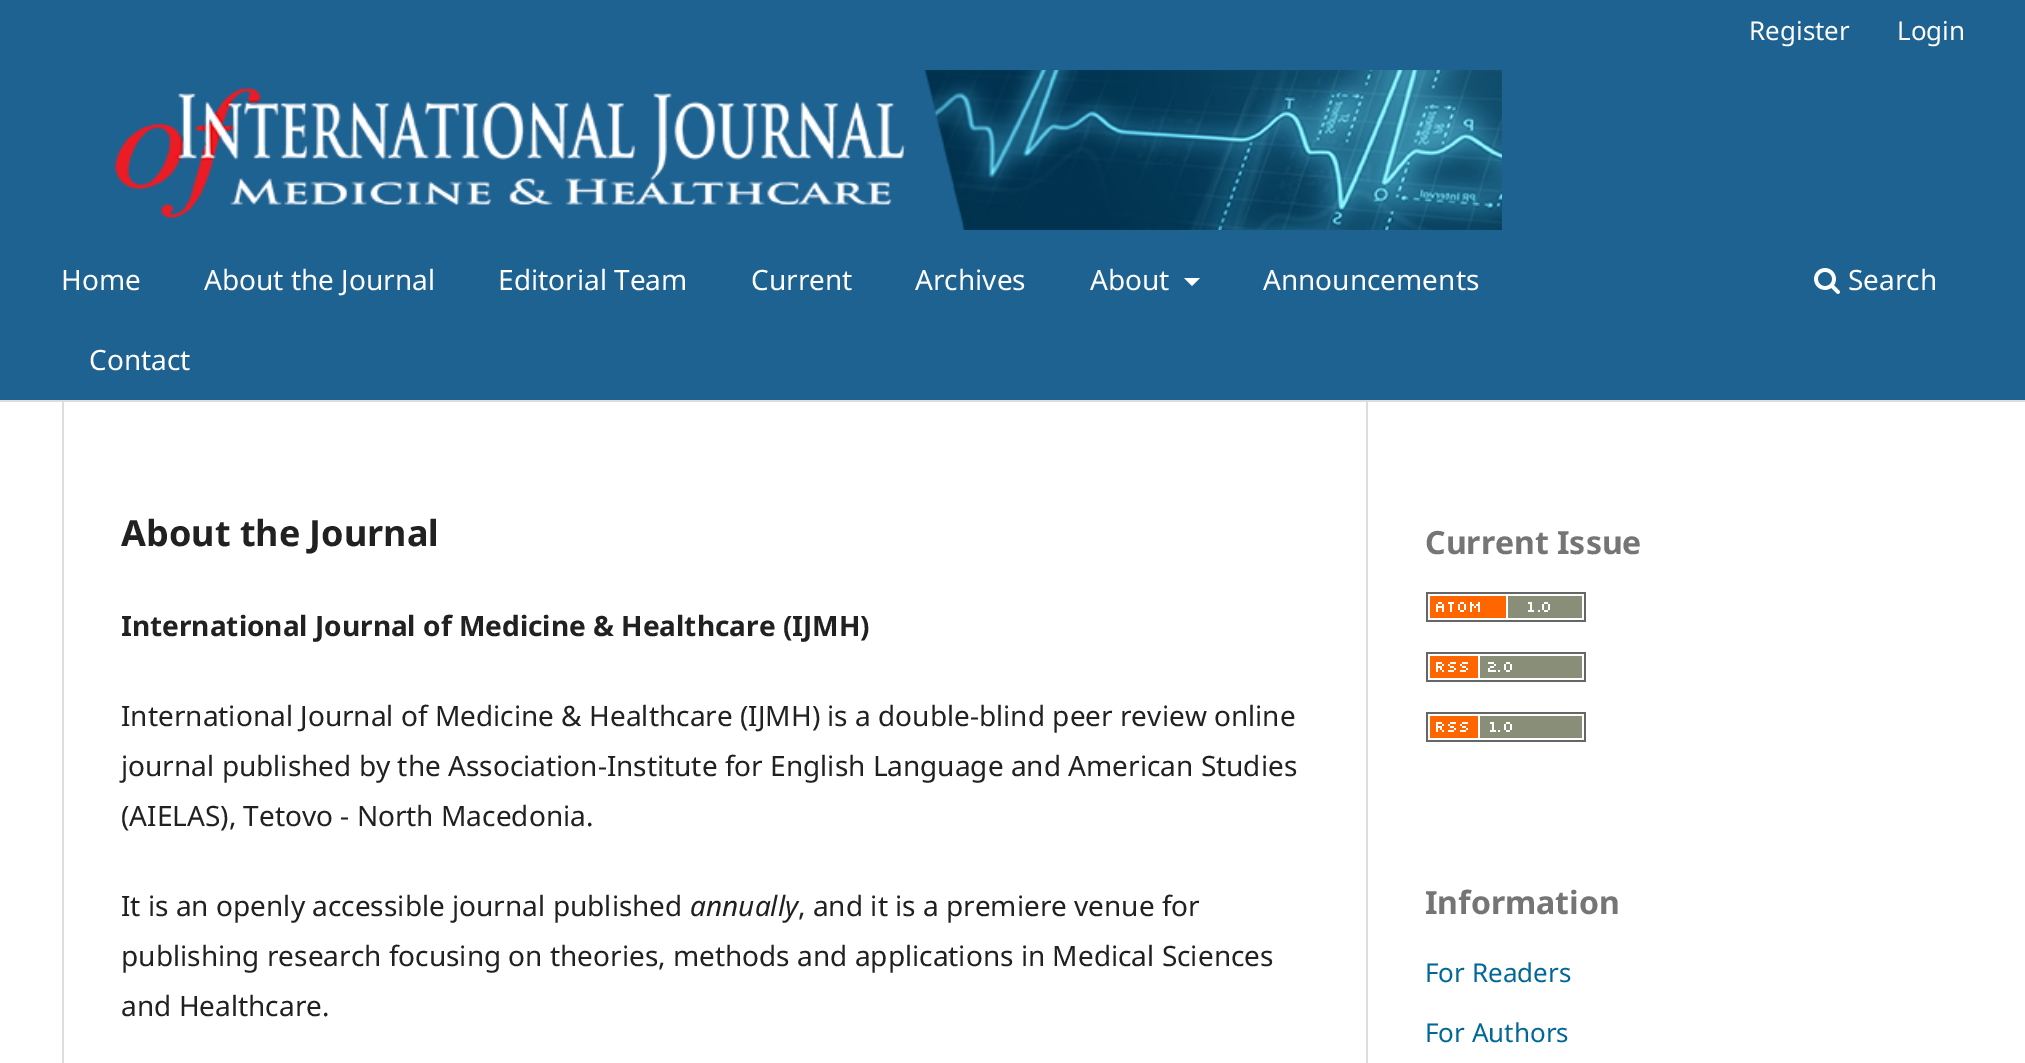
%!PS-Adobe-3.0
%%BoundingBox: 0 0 2025 1063
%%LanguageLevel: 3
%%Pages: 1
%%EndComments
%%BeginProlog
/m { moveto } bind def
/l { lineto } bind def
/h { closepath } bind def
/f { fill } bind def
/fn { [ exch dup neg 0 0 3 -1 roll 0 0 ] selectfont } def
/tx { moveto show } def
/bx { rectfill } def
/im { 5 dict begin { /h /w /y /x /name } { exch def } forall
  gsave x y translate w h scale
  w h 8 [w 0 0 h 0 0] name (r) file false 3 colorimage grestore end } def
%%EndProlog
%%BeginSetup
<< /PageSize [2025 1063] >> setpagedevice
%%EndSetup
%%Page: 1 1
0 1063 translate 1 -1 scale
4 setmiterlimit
1 setgray
0 0 2025 1063 bx
0.118 0.384 0.573 setrgbcolor
0 0 2025 400 bx
0.867 setgray
0 400 2025 2 bx
/NotoSans-Regular 26 fn
1 setgray
(Register) 1749 40 tx
(Login) 1897 40 tx
/NotoSans-Regular 28 fn
(Home) 61 290 tx
(About the Journal) 204 290 tx
(Editorial Team) 498 290 tx
(Current) 751 290 tx
(Archives) 915 290 tx
(About) 1090 290 tx
1184 278 m 1200 278 l 1192 286 l h f
(Announcements) 1263 290 tx
(Contact) 89 370 tx
(image0.raw) 1814 268 26 26 im
(Search) 1848 290 tx
(image1.raw) 114 70 1388 160 im
0.867 setgray
62 402 2 661 bx
/NotoSans-Bold 36 fn
0.129 setgray
(About the Journal) 121 546 tx
/NotoSans-Bold 28 fn
(International Journal of Medicine & Healthcare \(IJMH\)) 121 636 tx
/NotoSans-Regular 28 fn
(International Journal of Medicine & Healthcare \(IJMH\) is a double-blind peer review online) 121 726 tx
(journal published by the Association-Institute for English Language and American Studies) 121 776 tx
(\(AIELAS\), Tetovo - North Macedonia.) 121 826 tx
(It is an openly accessible journal published) 121 916 tx
/NotoSans-Italic 28 fn
(annually) 690 916 tx
/NotoSans-Regular 28 fn
(, and it is a premiere venue for) 798 916 tx
(publishing research focusing on theories, methods and applications in Medical Sciences) 121 966 tx
(and Healthcare.) 121 1016 tx
0.867 setgray
1366 402 2 661 bx
/NotoSans-Bold 32 fn
0.459 setgray
(Current Issue) 1425 554 tx
(image2.raw) 1426 592 160 30 im
(image3.raw) 1426 652 160 30 im
(image4.raw) 1426 712 160 30 im
(Information) 1425 914 tx
/NotoSans-Regular 26 fn
0 0.404 0.596 setrgbcolor
(For Readers) 1425 982 tx
(For Authors) 1425 1042 tx
showpage
%%EOF
